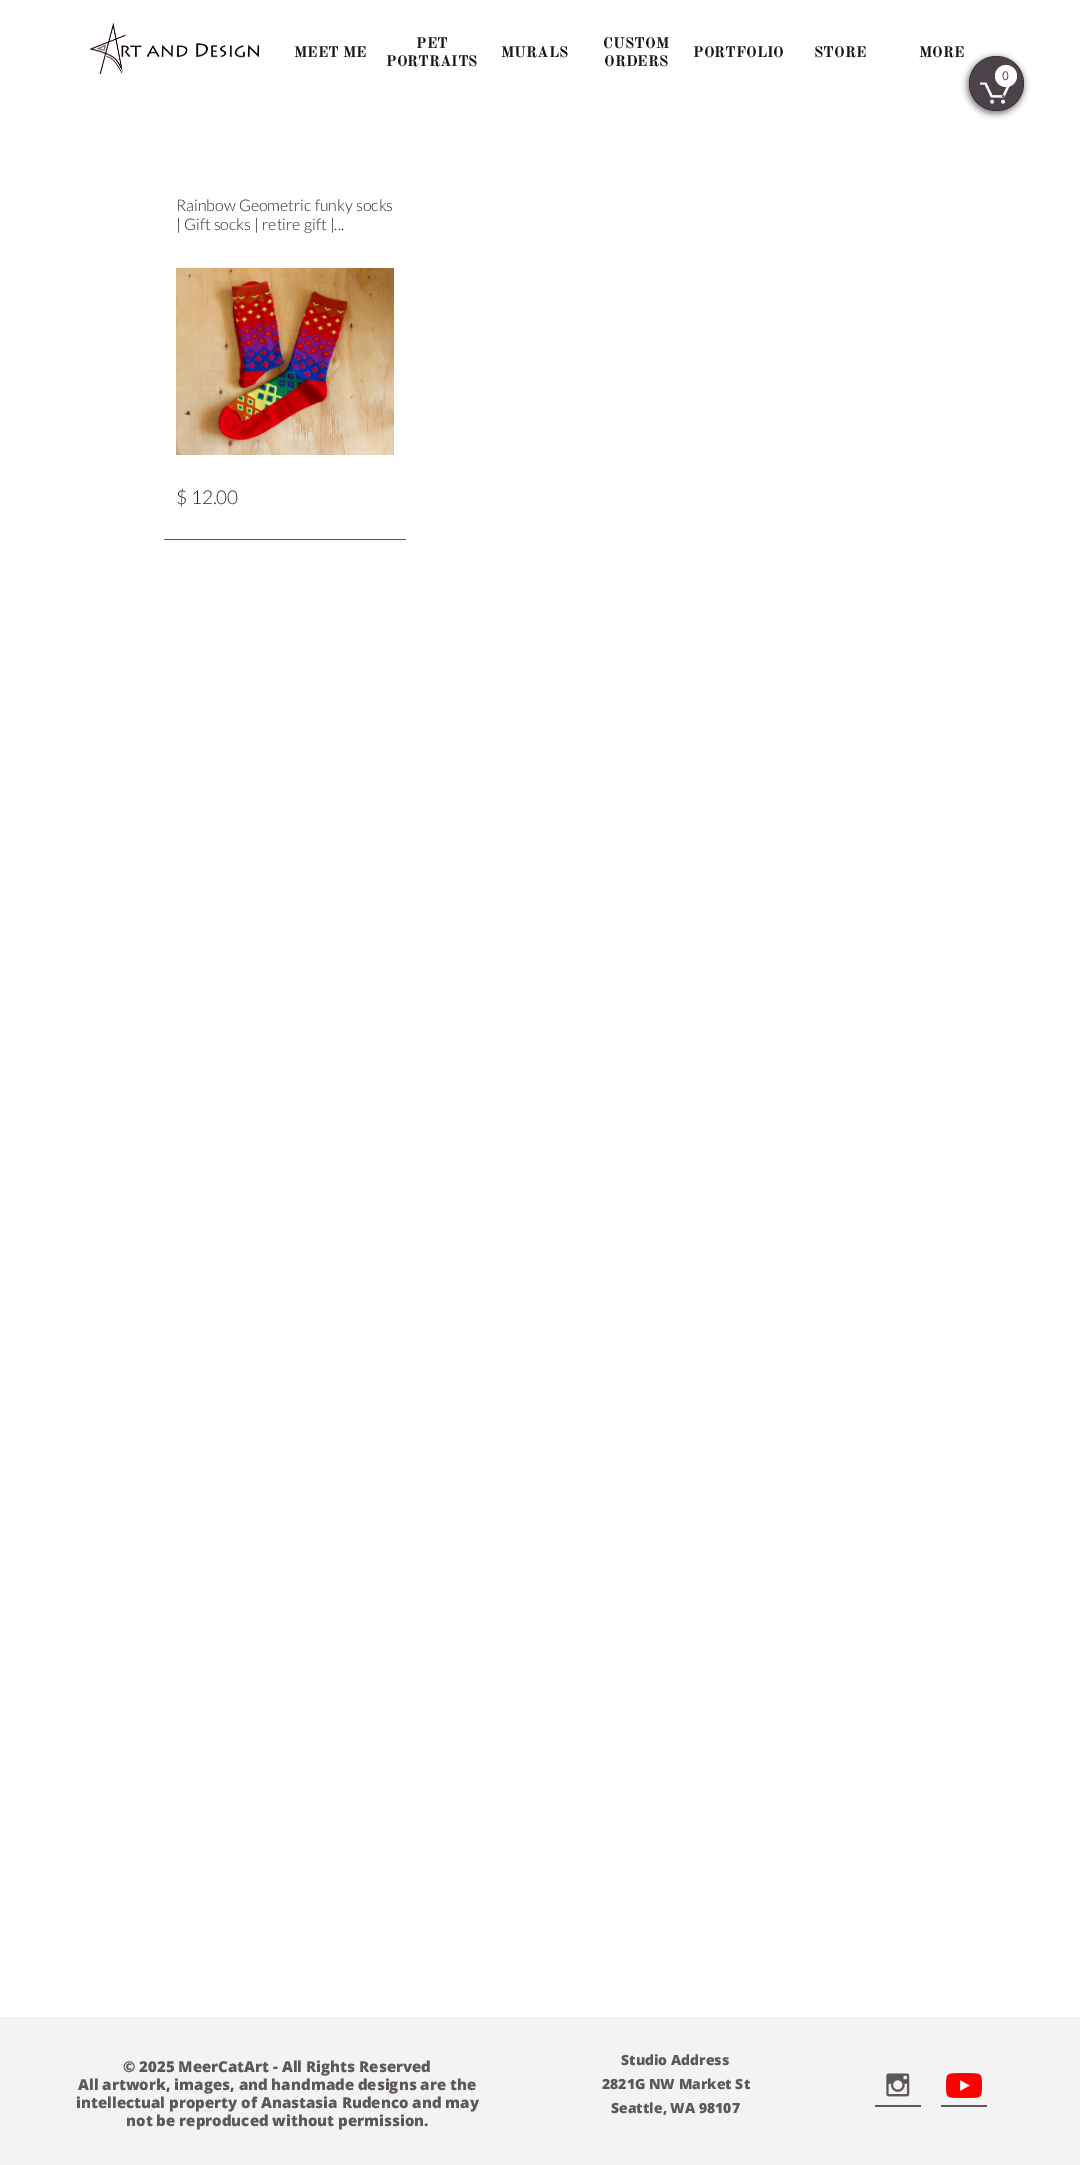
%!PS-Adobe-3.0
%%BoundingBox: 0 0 1080 2165
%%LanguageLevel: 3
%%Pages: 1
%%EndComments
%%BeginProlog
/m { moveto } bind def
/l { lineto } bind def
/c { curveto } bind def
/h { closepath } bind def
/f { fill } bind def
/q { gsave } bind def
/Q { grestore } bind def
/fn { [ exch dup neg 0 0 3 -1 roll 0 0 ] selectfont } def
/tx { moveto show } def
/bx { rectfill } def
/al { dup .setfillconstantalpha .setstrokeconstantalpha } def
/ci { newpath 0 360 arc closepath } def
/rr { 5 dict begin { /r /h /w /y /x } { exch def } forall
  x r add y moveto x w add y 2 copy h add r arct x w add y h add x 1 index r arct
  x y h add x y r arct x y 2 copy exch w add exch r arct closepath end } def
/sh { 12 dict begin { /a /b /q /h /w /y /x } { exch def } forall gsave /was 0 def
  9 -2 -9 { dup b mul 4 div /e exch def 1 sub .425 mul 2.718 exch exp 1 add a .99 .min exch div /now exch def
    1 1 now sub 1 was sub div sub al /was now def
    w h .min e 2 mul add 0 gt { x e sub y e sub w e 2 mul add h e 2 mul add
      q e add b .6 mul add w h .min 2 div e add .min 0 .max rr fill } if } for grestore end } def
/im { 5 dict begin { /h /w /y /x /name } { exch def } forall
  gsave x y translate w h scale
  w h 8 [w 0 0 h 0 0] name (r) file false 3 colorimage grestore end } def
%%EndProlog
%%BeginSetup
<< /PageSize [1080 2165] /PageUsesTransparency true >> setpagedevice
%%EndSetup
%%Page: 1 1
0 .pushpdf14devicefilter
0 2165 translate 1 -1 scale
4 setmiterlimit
1 setgray
0 0 1080 2165 bx
(image0.raw) 89 23 171 51 im
/OldStandardTT-Bold 15 fn
0.09 0.078 0.086 setrgbcolor
(MEET ME) 294 57 tx
(PET) 416 48 tx
(PORTRAITS) 386 66 tx
(MURALS) 501 57 tx
(CUSTOM) 603 48 tx
(ORDERS) 604 66 tx
(PORTFOLIO) 693 57 tx
(STORE) 814 57 tx
(MORE) 919 57 tx
0.298 0.259 0.286 setrgbcolor
996.5 83.5 27.5 ci f
q
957 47 m 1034 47 l 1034 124 l 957 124 l h 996.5 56 m 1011.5 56 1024 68.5 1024 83.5 c 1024 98.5 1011.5 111 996.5 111 c 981.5 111 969 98.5 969 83.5 c 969 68.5 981.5 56 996.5 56 c h eoclip newpath
0.02 setgray
967 57 57 57 28.5 3 0.5 sh
Q
(image1.raw) 980 82 30 22 im
1 setgray
1006 76 11 ci f
/OpenSans-Regular 12 fn
0.298 0.259 0.286 setrgbcolor
(0) 1002 80 tx
0.365 0.337 0.357 setrgbcolor
164 539 242 1 bx
/Lato-Light 16 fn
0.157 0.145 0.153 setrgbcolor
(Rainbow Geometric funky socks) 176 211 tx
(| Gift socks | retire gift |...) 176 230 tx
(image2.raw) 176 268 218 187 im
/Lato-Light 19 fn
($ 12.00) 176 504 tx
0.953 setgray
0 2017 1080 148 bx
/OpenSans-ExtraBold 15 fn
0.365 0.337 0.357 setrgbcolor
(© 2025 MeerCatArt - All Rights Reserved) 123 2072 tx
(All artwork, images, and handmade designs are the) 78 2090 tx
(intellectual property of Anastasia Rudenco and may) 76 2108 tx
(not be reproduced without permission.) 126 2126 tx
/OpenSans-ExtraBold 14 fn
(Studio Address) 621 2065 tx
(2821G NW Market St) 602 2089 tx
(Seattle, WA 98107) 611 2113 tx
875 2105 46 2 bx
(image3.raw) 886 2073 24 24 im
941 2105 46 2 bx
(image4.raw) 946 2073 36 25 im
.poppdf14devicefilter showpage
%%EOF
